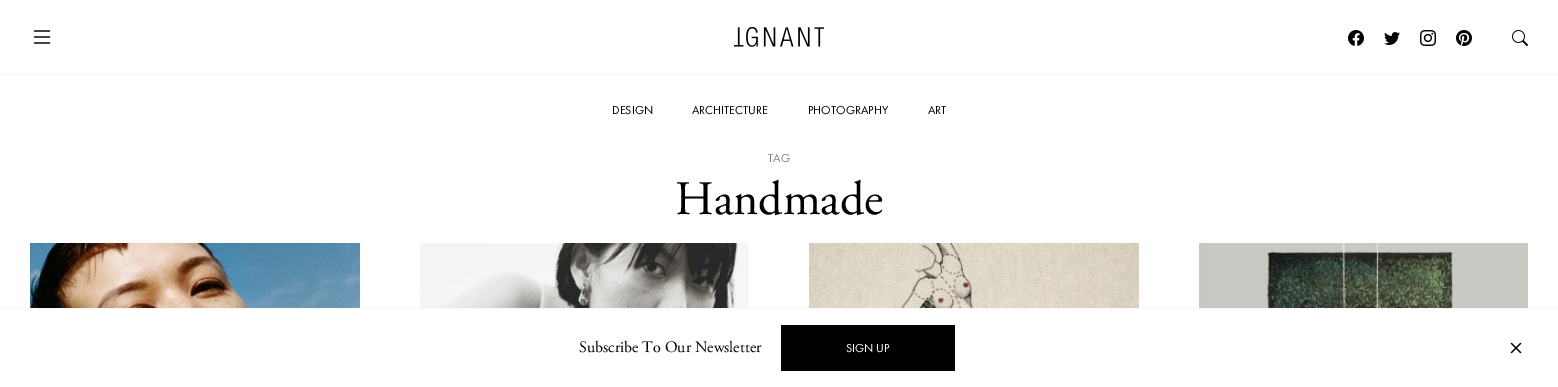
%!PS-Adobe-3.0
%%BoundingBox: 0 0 1558 387
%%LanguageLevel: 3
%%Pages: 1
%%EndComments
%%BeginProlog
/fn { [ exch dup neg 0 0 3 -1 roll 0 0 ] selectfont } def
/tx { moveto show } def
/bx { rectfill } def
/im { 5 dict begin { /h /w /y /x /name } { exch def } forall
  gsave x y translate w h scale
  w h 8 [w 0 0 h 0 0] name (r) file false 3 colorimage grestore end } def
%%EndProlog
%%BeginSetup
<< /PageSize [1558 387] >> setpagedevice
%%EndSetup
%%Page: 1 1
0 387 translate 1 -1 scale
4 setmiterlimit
1 setgray
0 0 1558 387 bx
0.969 setgray
0 74 1558 1 bx
(image0.raw) 33 30 18 14 im
(image1.raw) 734 27 90 20 im
(image2.raw) 1348 30 16 16 im
(image3.raw) 1384 32 16 13 im
(image4.raw) 1420 30 16 16 im
(image5.raw) 1456 30 16 16 im
(image6.raw) 1512 30 16 16 im
/FuturaPT-Regular 12 fn
0 setgray
(DESIGN) 612 114 tx
(ARCHITECTURE) 692 114 tx
(PHOTOGRAPHY) 808 114 tx
(ART) 928 114 tx
0.502 setgray
(TAG) 768 162 tx
/AdobeGaramond-Regular 48 fn
0 setgray
(Handmade) 675 214 tx
(image7.raw) 30 243 330 65 im
(image8.raw) 420 243 329 65 im
(image9.raw) 809 243 330 65 im
(image10.raw) 1199 243 329 65 im
0.969 setgray
0 308 1558 1 bx
/AdobeGaramond-Regular 16 fn
0 setgray
(Subscribe To Our Newsletter) 579 352 tx
781 325 174 46 bx
/FuturaPT-Regular 12 fn
1 setgray
(SIGN UP) 846 352 tx
(image11.raw) 1510 342 12 12 im
showpage
%%EOF
